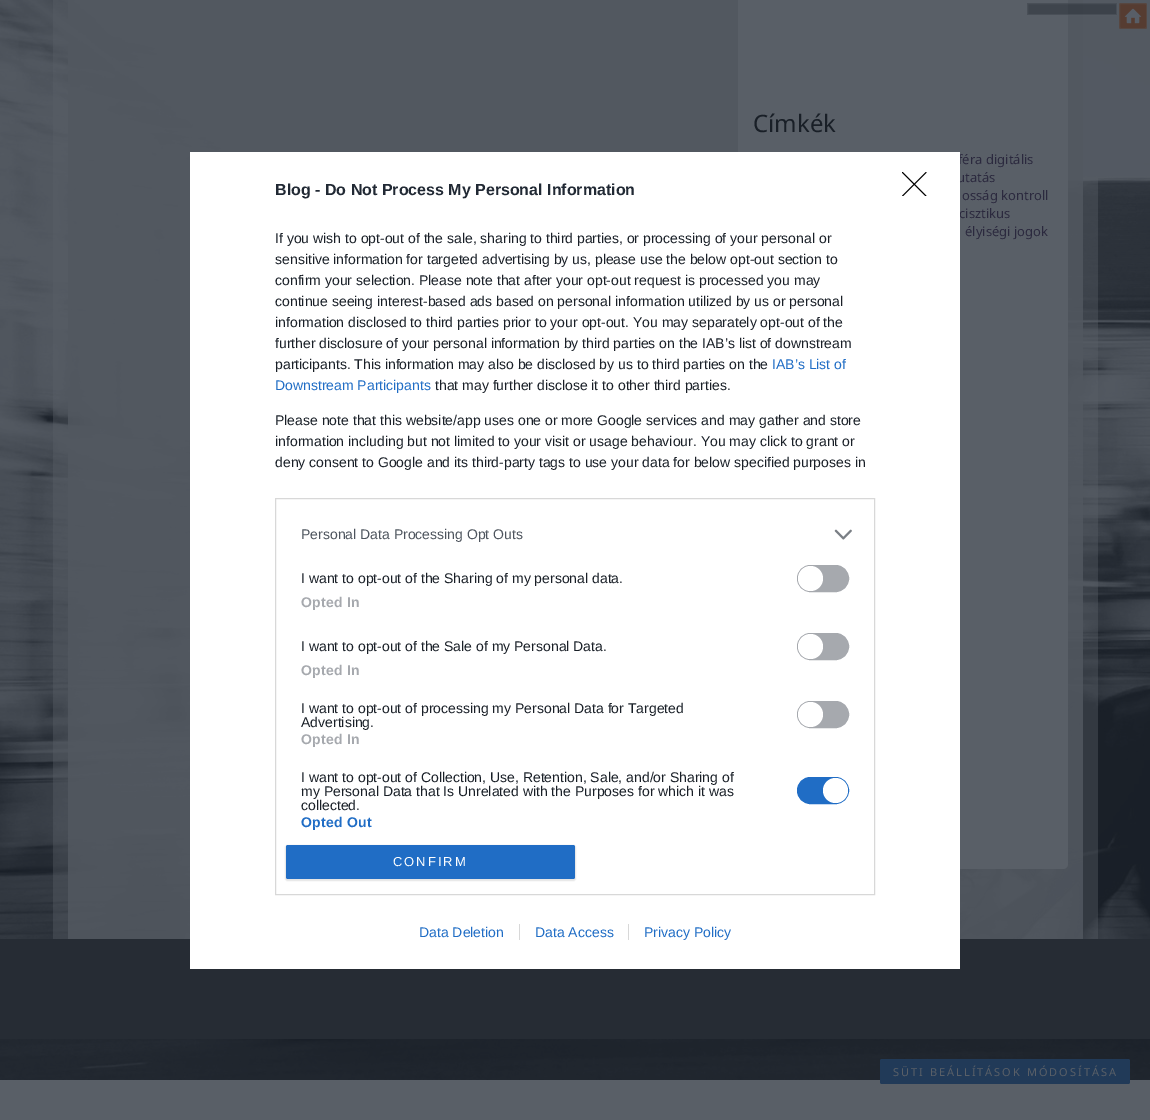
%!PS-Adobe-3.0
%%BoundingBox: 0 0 1150 1120
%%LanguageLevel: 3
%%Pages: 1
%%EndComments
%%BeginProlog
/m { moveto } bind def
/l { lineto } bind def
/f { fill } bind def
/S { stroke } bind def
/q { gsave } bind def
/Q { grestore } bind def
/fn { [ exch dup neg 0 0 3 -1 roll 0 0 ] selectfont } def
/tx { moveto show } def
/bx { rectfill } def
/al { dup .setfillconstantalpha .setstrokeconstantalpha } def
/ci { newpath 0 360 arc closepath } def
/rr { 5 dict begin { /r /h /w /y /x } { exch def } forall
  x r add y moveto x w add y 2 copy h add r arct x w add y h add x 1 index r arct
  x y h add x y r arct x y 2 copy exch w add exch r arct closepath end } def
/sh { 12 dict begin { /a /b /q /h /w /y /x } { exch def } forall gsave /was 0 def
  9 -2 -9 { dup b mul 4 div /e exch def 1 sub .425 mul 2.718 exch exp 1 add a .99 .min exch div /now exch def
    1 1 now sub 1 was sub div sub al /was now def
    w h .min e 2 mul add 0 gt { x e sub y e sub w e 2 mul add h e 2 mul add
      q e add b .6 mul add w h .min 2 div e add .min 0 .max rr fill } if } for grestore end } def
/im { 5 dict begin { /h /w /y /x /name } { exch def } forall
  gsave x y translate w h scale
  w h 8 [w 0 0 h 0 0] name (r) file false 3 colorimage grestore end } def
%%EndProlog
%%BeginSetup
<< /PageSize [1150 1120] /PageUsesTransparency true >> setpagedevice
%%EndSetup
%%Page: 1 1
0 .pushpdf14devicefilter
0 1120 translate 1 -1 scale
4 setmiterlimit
0.349 0.373 0.404 setrgbcolor
0 0 1150 1120 bx
(image0.raw) 0 0 1150 1080 im
0.9 al
0.322 0.345 0.376 setrgbcolor
68 0 1015 939 bx
1 al
0.349 0.373 0.404 setrgbcolor
738 -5 330 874 5 rr f
0.4 al
0.098 0.122 0.153 setrgbcolor
1027 3 90 12 bx
0.349 0.373 0.404 setrgbcolor
1027.5 3.5 89 11 rectstroke
1 al
0.337 0.235 0.192 setrgbcolor
1119 3 28 26 2 rr f
0.3 al
0.349 0.373 0.404 setrgbcolor
1119.5 3.5 27 25 1.5 rr S
1 al
(image1.raw) 1124 8 18 16 im
/NotoSans-Regular 13 fn
0.169 0.161 0.243 setrgbcolor
(féra digitális) 958 164 tx
(utatás) 957 182 tx
(cisztikus) 959 218 tx
0.149 0.173 0.204 setrgbcolor
0 939 1150 100 bx
1 setgray
190 152 770 817 bx
/LiberationSans-Bold 16 fn
0.129 0.161 0.204 setrgbcolor
(Blog - Do Not Process My Personal Information) 275 195 tx
/LiberationSans-Regular 14 fn
0.098 0.122 0.153 setrgbcolor
(If you wish to opt-out of the sale, sharing to third parties, or processing of your personal or) 275 243 tx
(sensitive information for targeted advertising by us, please use the below opt-out section to) 275 264 tx
(confirm your selection. Please note that after your opt-out request is processed you may) 275 285 tx
(continue seeing interest-based ads based on personal information utilized by us or personal) 275 306 tx
(information disclosed to third parties prior to your opt-out. You may separately opt-out of the) 275 327 tx
(further disclosure of your personal information by third parties on the IAB’s list of downstream) 275 348 tx
(participants. This information may also be disclosed by us to third parties on the) 275 369 tx
0.125 0.427 0.773 setrgbcolor
(IAB’s List of) 772 369 tx
(Downstream Participants) 275 390 tx
0.098 0.122 0.153 setrgbcolor
(that may further disclose it to other third parties.) 435 390 tx
(Please note that this website/app uses one or more Google services and may gather and store) 275 425 tx
(information including but not limited to your visit or usage behaviour. You may click to grant or) 275 446 tx
(deny consent to Google and its third-party tags to use your data for below specified purposes in) 275 467 tx
0.847 setgray
275.5 498.5 599 396 rectstroke
0.302 0.329 0.365 setrgbcolor
(Personal Data Processing Opt Outs) 301 539 tx
(image2.raw) 834 529 18 11 im
0.098 0.122 0.153 setrgbcolor
(I want to opt-out of the Sharing of my personal data.) 301 583 tx
0.651 0.663 0.682 setrgbcolor
797.5 565.5 51 26 13 rr q f Q
S
1 setgray
810.5 578.5 12.5 ci f
/LiberationSans-Bold 14 fn
0.651 0.663 0.682 setrgbcolor
301 607 m 0.25 0 (Opted In) ashow
/LiberationSans-Regular 14 fn
0.098 0.122 0.153 setrgbcolor
(I want to opt-out of the Sale of my Personal Data.) 301 651 tx
0.651 0.663 0.682 setrgbcolor
797.5 633.5 51 26 13 rr q f Q
S
1 setgray
810.5 646.5 12.5 ci f
/LiberationSans-Bold 14 fn
0.651 0.663 0.682 setrgbcolor
301 675 m 0.25 0 (Opted In) ashow
/LiberationSans-Regular 14 fn
0.098 0.122 0.153 setrgbcolor
(I want to opt-out of processing my Personal Data for Targeted) 301 713 tx
(Advertising.) 301 727 tx
0.651 0.663 0.682 setrgbcolor
797.5 701.5 51 26 13 rr q f Q
S
1 setgray
810.5 714.5 12.5 ci f
/LiberationSans-Bold 14 fn
0.651 0.663 0.682 setrgbcolor
301 744 m 0.25 0 (Opted In) ashow
/LiberationSans-Regular 14 fn
0.098 0.122 0.153 setrgbcolor
(I want to opt-out of Collection, Use, Retention, Sale, and/or Sharing of) 301 782 tx
(my Personal Data that Is Unrelated with the Purposes for which it was) 301 796 tx
(collected.) 301 810 tx
0.125 0.427 0.773 setrgbcolor
797.5 777.5 51 26 13 rr q f Q
S
1 setgray
835.5 790.5 12.5 ci f
/LiberationSans-Bold 14 fn
0.125 0.427 0.773 setrgbcolor
301 827 m 0.25 0 (Opted Out) ashow
0 setgray
285 845 291 36 3 0.5 0.1 sh
0.125 0.427 0.773 setrgbcolor
286 845 289 34 2 rr f
/LiberationSans-Regular 13 fn
1 setgray
393 866 m 2 0 (CONFIRM) ashow
q
902 172 25 24 rectclip
0 setgray
1 setlinecap
1 setlinejoin
902.5 172.5 m 926 196 l 926 172.5 m 902.5 196 l S
Q
/LiberationSans-Regular 14 fn
0.125 0.427 0.773 setrgbcolor
(Data Deletion) 419 937 tx
(Data Access) 535 937 tx
0.847 setgray
519 924 1 16 bx
0.125 0.427 0.773 setrgbcolor
(Privacy Policy) 644 937 tx
0.847 setgray
628 924 1 16 bx
0.4 al
0.349 0.373 0.404 setrgbcolor
1083 178 15 761 bx
53 0 15 939 bx
/NotoSans-Regular 24 fn
1 al
0.098 0.122 0.153 setrgbcolor
(Címkék) 753 132 tx
/NotoSans-Regular 13 fn
0.169 0.161 0.243 setrgbcolor
(osság kontroll) 962 200 tx
(élyiségi jogok) 965 236 tx
0.129 0.227 0.345 setrgbcolor
880 1059 250 25 2 rr f
/NotoSans-Regular 11 fn
0.349 0.373 0.404 setrgbcolor
893 1076 m 2 0 (SÜTI BEÁLLÍTÁSOK MÓDOSÍTÁSA) ashow
.poppdf14devicefilter showpage
%%EOF
